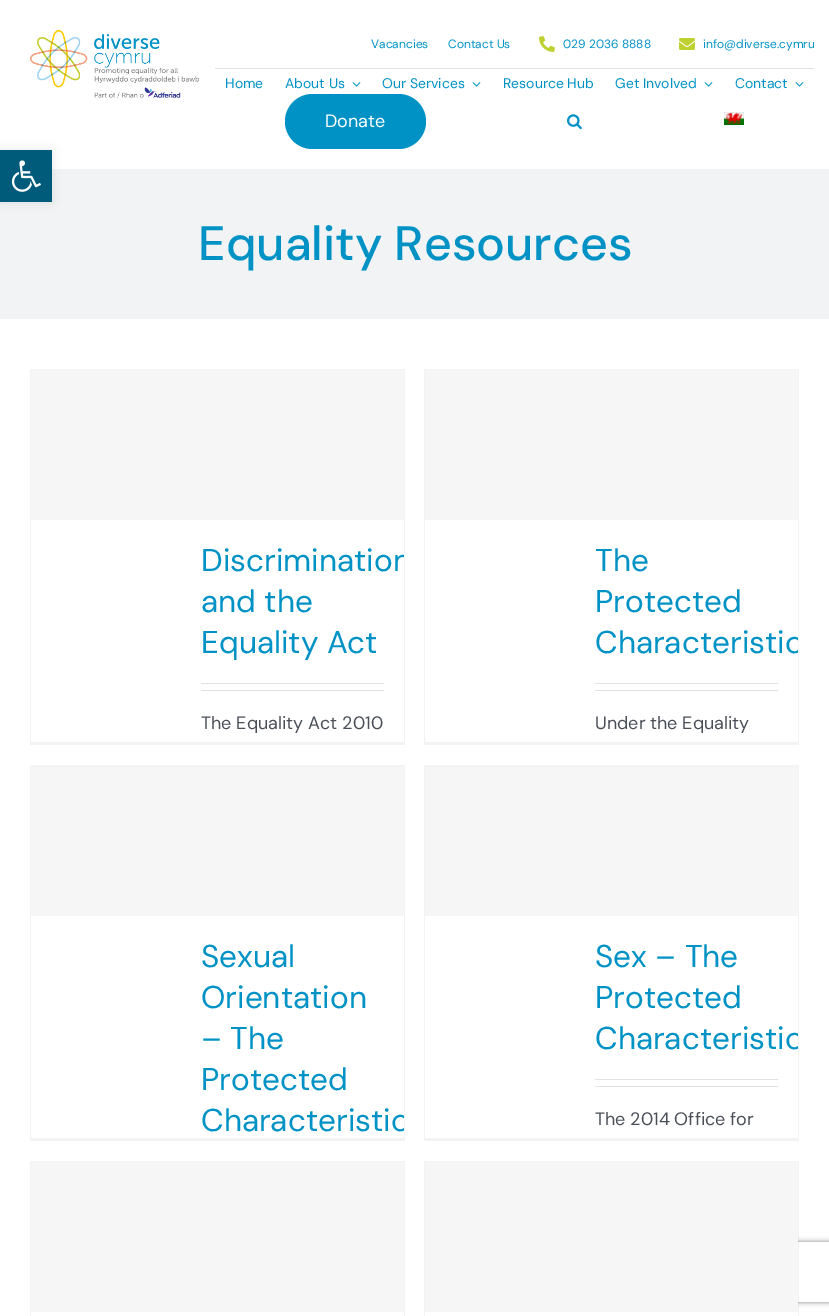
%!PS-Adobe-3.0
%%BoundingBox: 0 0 829 1316
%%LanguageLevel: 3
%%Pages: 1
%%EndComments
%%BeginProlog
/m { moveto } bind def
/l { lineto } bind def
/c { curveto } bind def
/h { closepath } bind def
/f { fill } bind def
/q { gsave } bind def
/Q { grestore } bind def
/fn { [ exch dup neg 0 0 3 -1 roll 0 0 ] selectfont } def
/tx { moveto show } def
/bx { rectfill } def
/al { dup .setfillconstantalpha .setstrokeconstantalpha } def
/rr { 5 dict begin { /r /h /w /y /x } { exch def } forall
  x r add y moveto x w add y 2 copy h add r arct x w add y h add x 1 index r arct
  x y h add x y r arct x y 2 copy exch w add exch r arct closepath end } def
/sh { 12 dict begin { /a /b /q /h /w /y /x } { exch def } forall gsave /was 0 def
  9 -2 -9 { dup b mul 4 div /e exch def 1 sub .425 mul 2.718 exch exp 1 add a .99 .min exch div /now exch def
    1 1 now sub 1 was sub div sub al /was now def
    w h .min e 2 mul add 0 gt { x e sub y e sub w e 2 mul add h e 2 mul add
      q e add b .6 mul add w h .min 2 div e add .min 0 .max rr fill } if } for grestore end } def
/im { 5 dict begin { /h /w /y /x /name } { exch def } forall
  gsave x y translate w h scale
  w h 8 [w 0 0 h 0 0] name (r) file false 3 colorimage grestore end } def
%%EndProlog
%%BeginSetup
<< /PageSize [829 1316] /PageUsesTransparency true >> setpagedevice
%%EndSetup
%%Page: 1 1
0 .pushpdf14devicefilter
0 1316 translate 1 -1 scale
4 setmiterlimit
1 setgray
0 0 829 1316 bx
0.949 0.953 0.961 setrgbcolor
0 169 829 150 bx
0 setgray
0 150 52 52 0 5 0.1 sh
0 0.357 0.482 setrgbcolor
0 150 52 52 bx
(image0.raw) 11 160 30 32 im
(image1.raw) 30 30 169 68 im
/DMSans-Regular 12 fn
0 0.573 0.773 setrgbcolor
(Vacancies) 371 48 tx
(Contact Us) 448 48 tx
(image2.raw) 539 36 16 16 im
(029 2036 8888) 563 48 tx
(image3.raw) 679 38 16 12 im
(info@diverse.cymru) 703 48 tx
0.886 setgray
215 68 599 1 bx
/DMSans-Regular 14 fn
0 0.573 0.773 setrgbcolor
(Home) 225 88 tx
(About Us) 285 88 tx
(image4.raw) 352 82 9 5 im
(Our Services) 382 88 tx
(image4.raw) 472 82 9 5 im
(Resource Hub) 503 88 tx
(Get Involved) 615 88 tx
(image4.raw) 704 82 9 5 im
(Contact) 735 88 tx
(image4.raw) 795 82 9 5 im
285 94 141 55 27.5 rr f
/DMSans-Regular 18 fn
1 setgray
(Donate) 325 127 tx
(image5.raw) 567 114 15 16 im
(image6.raw) 724 112 20 13 im
/DMSans-Medium 48.25 fn
0 0.573 0.773 setrgbcolor
(Equality Resources) 198 260 tx
0.949 0.953 0.961 setrgbcolor
30 369 375 1 bx
404 369 1 376 bx
30 742 375 3 bx
30 369 1 376 bx
0.965 setgray
31 370 373 150 bx
q
31 370 373 372 rectclip
/DMSans-Regular 31.5 fn
0 0.573 0.773 setrgbcolor
(Discrimination) 201 571 tx
Q
/DMSans-Regular 31.5 fn
0 0.573 0.773 setrgbcolor
(and the) 201 612 tx
(Equality Act) 201 653 tx
0.886 setgray
201 683 183 1 bx
201 690 183 1 bx
/DMSans-Regular 18 fn
0.29 0.306 0.341 setrgbcolor
(The Equality Act 2010) 201 729 tx
0.949 0.953 0.961 setrgbcolor
424 369 375 1 bx
798 369 1 376 bx
424 742 375 3 bx
424 369 1 376 bx
0.965 setgray
425 370 373 150 bx
/DMSans-Regular 31.5 fn
0 0.573 0.773 setrgbcolor
(The) 595 571 tx
(Protected) 595 612 tx
q
425 370 373 372 rectclip
(Characteristic) 595 653 tx
Q
0.886 setgray
595 683 183 1 bx
595 690 183 1 bx
/DMSans-Regular 18 fn
0.29 0.306 0.341 setrgbcolor
(Under the Equality) 595 729 tx
0.949 0.953 0.961 setrgbcolor
30 765 375 1 bx
404 765 1 376 bx
30 1138 375 3 bx
30 765 1 376 bx
0.965 setgray
31 766 373 150 bx
/DMSans-Regular 31.5 fn
0 0.573 0.773 setrgbcolor
(Sexual) 201 967 tx
(Orientation) 201 1008 tx
(– The) 201 1049 tx
(Protected) 201 1090 tx
q
31 766 373 372 rectclip
(Characteristic) 201 1131 tx
Q
0.949 0.953 0.961 setrgbcolor
424 765 375 1 bx
798 765 1 376 bx
424 1138 375 3 bx
424 765 1 376 bx
0.965 setgray
425 766 373 150 bx
0 0.573 0.773 setrgbcolor
(Sex – The) 595 967 tx
(Protected) 595 1008 tx
q
425 766 373 372 rectclip
(Characteristic) 595 1049 tx
Q
0.886 setgray
595 1079 183 1 bx
595 1086 183 1 bx
/DMSans-Regular 18 fn
0.29 0.306 0.341 setrgbcolor
(The 2014 Office for) 595 1125 tx
0.949 0.953 0.961 setrgbcolor
30 1161 375 1 bx
404 1161 1 155 bx
30 1161 1 155 bx
0.965 setgray
31 1162 373 150 bx
0.949 0.953 0.961 setrgbcolor
424 1161 375 1 bx
798 1161 1 155 bx
424 1161 1 155 bx
q
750 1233 m 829 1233 l 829 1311 l 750 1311 l h 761 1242 m 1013 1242 l 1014 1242 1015 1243 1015 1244 c 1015 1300 l 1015 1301 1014 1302 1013 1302 c 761 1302 l 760 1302 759 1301 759 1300 c 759 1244 l 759 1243 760 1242 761 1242 c h eoclip newpath
0.502 setgray
759 1242 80 60 2 2.5 1 sh
Q
0.965 setgray
425 1162 373 150 bx
.poppdf14devicefilter showpage
%%EOF
